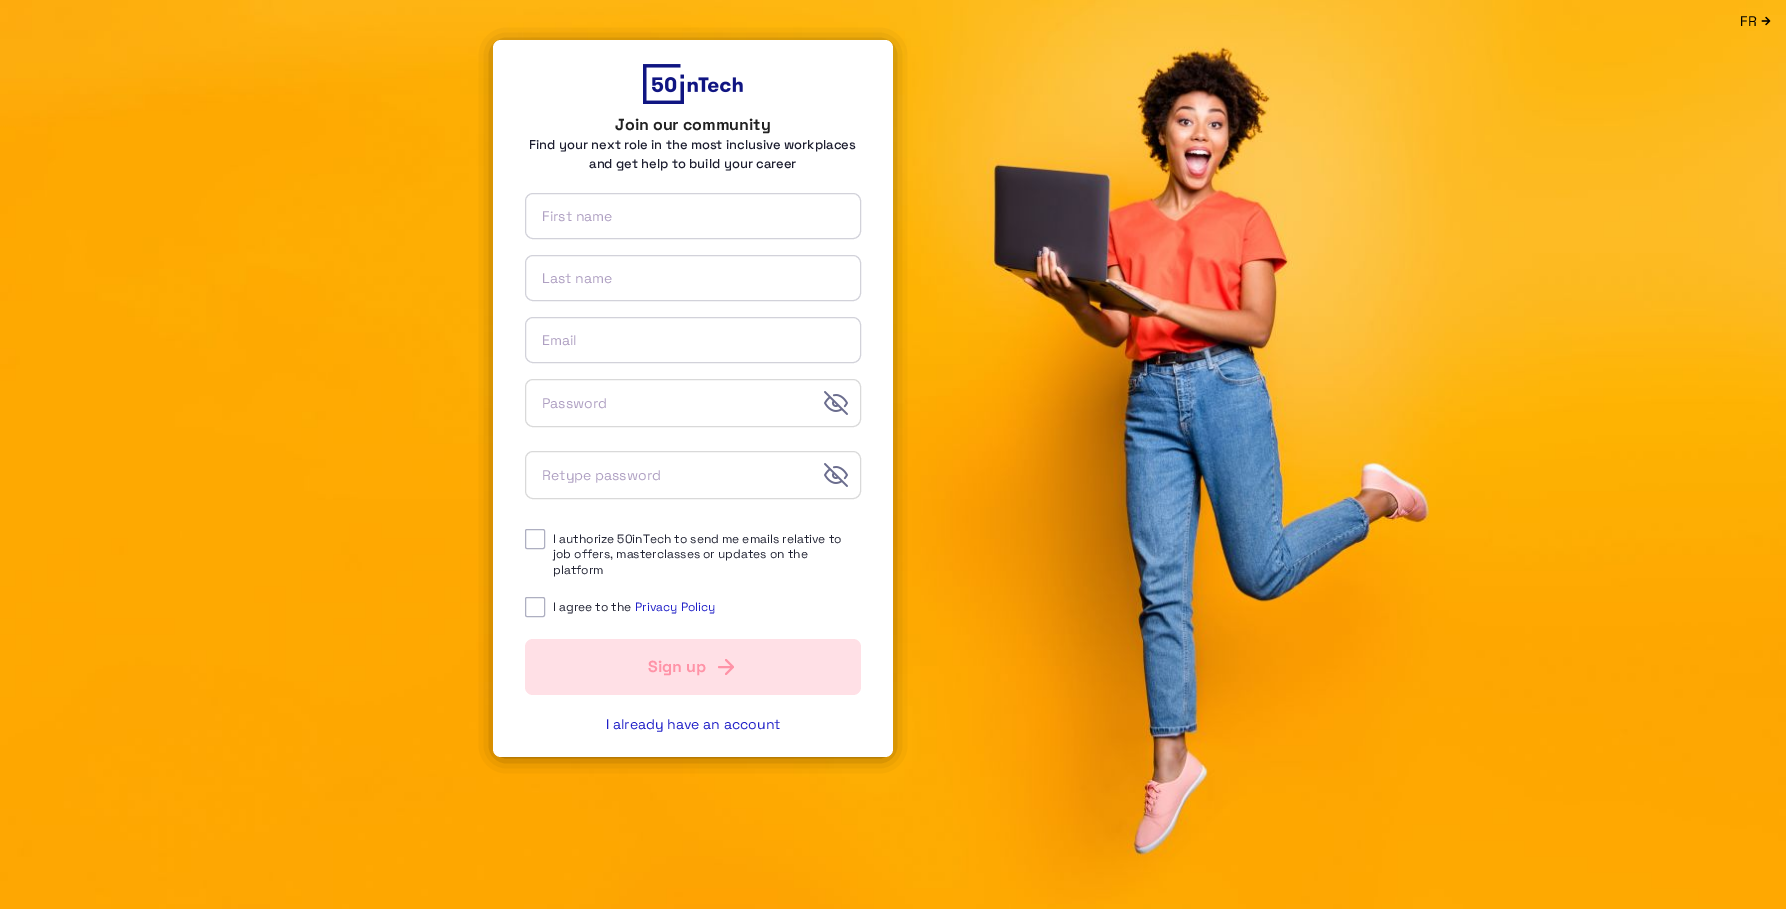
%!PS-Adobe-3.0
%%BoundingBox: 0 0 1786 909
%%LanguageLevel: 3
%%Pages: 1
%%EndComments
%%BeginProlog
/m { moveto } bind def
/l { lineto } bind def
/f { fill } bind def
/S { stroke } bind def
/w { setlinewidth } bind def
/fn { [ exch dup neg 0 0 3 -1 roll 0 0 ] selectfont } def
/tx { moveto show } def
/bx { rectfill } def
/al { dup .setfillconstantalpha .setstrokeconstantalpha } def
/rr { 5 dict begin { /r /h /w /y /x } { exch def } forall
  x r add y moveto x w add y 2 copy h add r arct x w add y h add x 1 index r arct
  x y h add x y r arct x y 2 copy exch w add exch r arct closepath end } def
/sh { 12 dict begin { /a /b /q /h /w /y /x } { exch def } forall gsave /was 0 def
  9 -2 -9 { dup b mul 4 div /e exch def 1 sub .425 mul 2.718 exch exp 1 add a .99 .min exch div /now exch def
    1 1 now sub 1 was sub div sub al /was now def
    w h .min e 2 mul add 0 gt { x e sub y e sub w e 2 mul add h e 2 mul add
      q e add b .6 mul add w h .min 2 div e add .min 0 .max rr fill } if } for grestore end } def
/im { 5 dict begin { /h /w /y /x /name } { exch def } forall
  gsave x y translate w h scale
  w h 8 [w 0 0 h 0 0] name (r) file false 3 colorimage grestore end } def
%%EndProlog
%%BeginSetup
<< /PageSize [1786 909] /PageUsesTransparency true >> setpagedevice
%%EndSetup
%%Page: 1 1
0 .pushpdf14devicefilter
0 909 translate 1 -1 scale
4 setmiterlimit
1 setgray
0 0 1786 909 bx
(image1.raw) 0 0 1786 909 im
/SpaceGrotesk-Regular 14 fn
0 setgray
(FR) 1740 26 tx
(image0.raw) 1761 16 10 10 im
501 50 384 701 0 10 0.93 sh
1 setgray
493 40 400 717 8 rr f
(image2.raw) 643 64 100 40 im
/SpaceGrotesk-Bold 16 fn
0.133 setgray
(Join our community) 615 130 tx
/SpaceGrotesk-Medium 13 fn
0.114 0.118 0.188 setrgbcolor
(Find your next role in the most inclusive workplaces) 529 149 tx
(and get help to build your career) 589 168 tx
0.824 0.824 0.855 setrgbcolor
525.5 193.5 335 45 7.5 rr S
/SpaceGrotesk-Regular 14 fn
0.686 0.627 0.761 setrgbcolor
(First name) 542 221 tx
0.824 0.824 0.855 setrgbcolor
525.5 255.5 335 45 7.5 rr S
0.686 0.627 0.761 setrgbcolor
(Last name) 542 283 tx
0.824 0.824 0.855 setrgbcolor
525.5 317.5 335 45 7.5 rr S
0.686 0.627 0.761 setrgbcolor
(Email) 542 345 tx
0.851 setgray
525.5 379.5 335 47 7.5 rr S
0.686 0.627 0.761 setrgbcolor
(Password) 542 408 tx
(image3.raw) 824 391 24 24 im
0.851 setgray
525.5 451.5 335 47 7.5 rr S
0.686 0.627 0.761 setrgbcolor
(Retype password) 542 480 tx
(image3.raw) 824 463 24 24 im
0.682 0.686 0.757 setrgbcolor
525.5 529.5 19 19 1.5 rr S
/SpaceGrotesk-Regular 12 fn
0.133 0.141 0.204 setrgbcolor
(I authorize 50inTech to send me emails relative to) 553 543 tx
(job offers, masterclasses or updates on the) 553 558 tx
(platform) 553 574 tx
0.682 0.686 0.757 setrgbcolor
525.5 597.5 19 19 1.5 rr S
0.133 0.141 0.204 setrgbcolor
(I agree to the) 553 611 tx
0.122 0.122 0.78 setrgbcolor
(Privacy Policy) 635 611 tx
1 0.878 0.902 setrgbcolor
525 639 336 56 8 rr f
/SpaceGrotesk-Bold 16 fn
1 0.576 0.655 setrgbcolor
(Sign up) 648 672 tx
2 w
1 setlinecap
1 setlinejoin
719 667 m 733 667 l 726 660 m 733 667 l 726 674 l S
/SpaceGrotesk-Regular 14 fn
0.122 0.122 0.78 setrgbcolor
(I already have an account) 606 729 tx
.poppdf14devicefilter showpage
%%EOF
